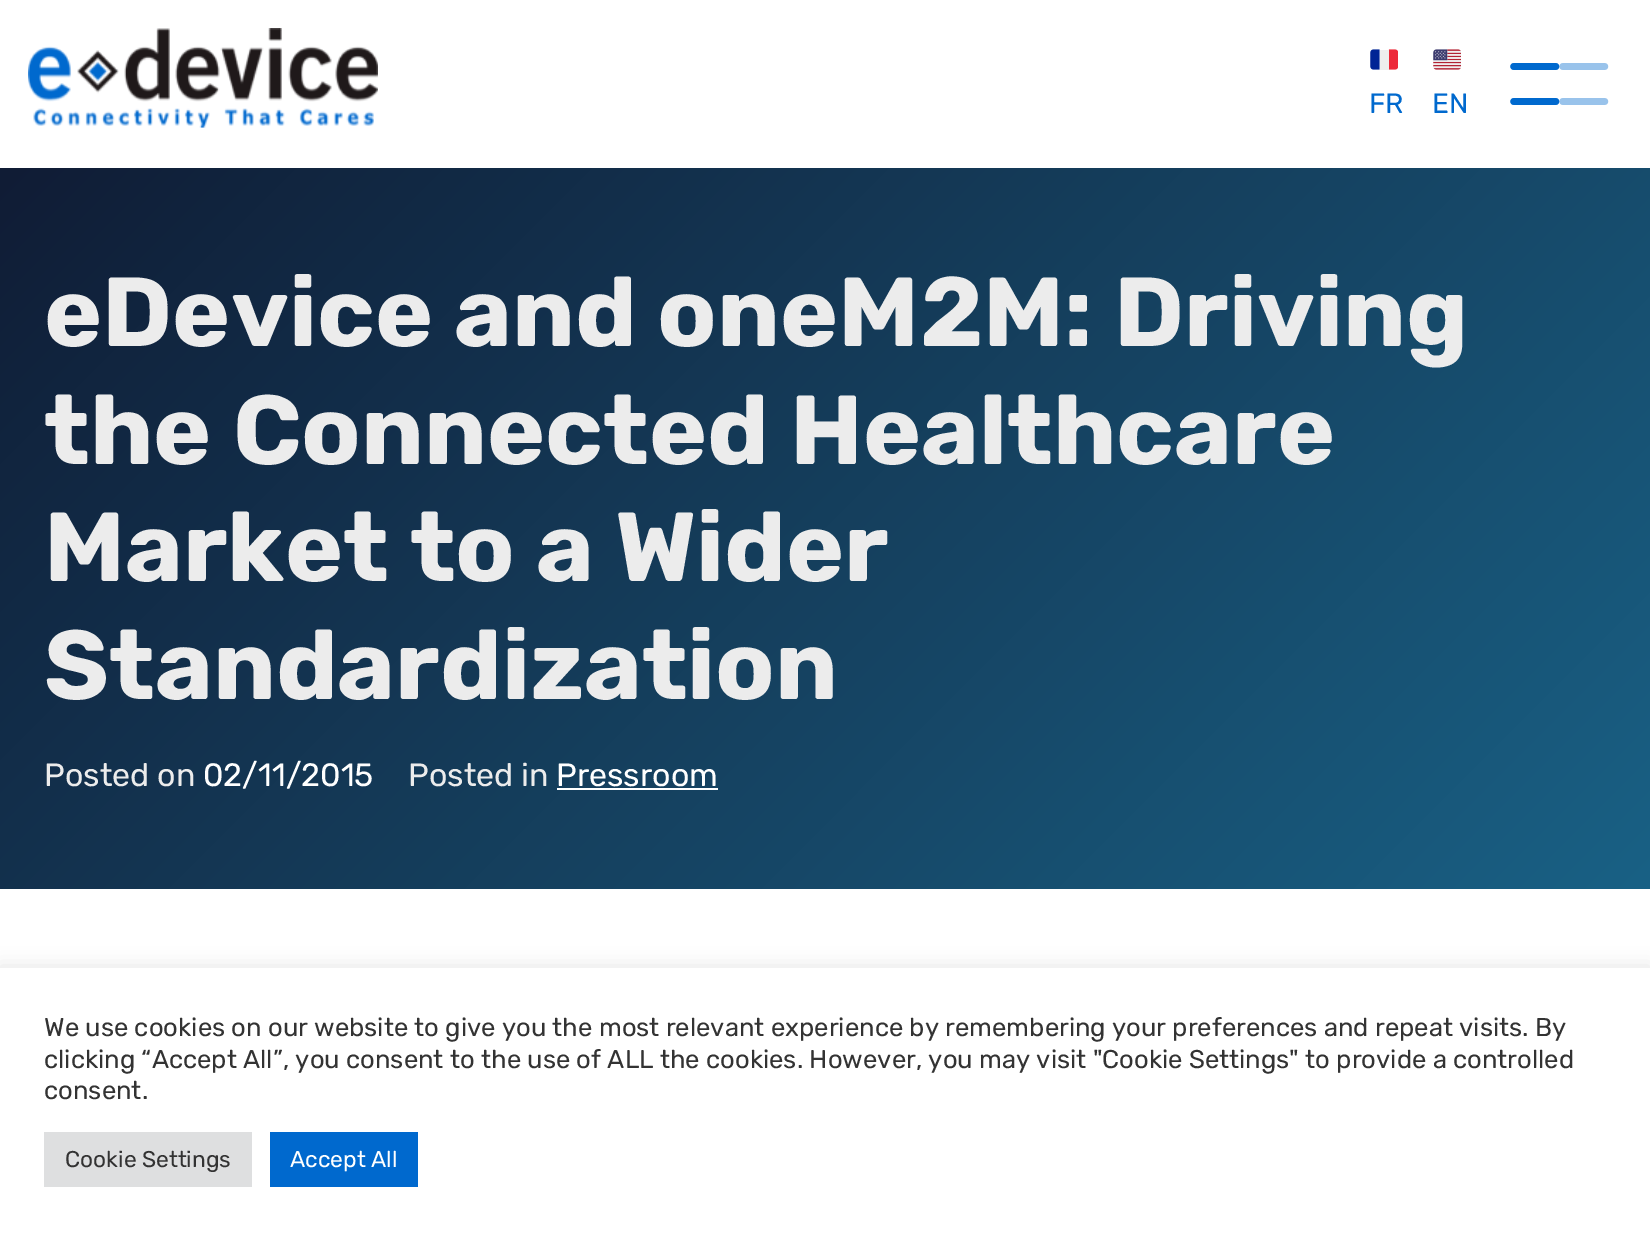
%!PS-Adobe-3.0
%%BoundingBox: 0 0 1650 1239
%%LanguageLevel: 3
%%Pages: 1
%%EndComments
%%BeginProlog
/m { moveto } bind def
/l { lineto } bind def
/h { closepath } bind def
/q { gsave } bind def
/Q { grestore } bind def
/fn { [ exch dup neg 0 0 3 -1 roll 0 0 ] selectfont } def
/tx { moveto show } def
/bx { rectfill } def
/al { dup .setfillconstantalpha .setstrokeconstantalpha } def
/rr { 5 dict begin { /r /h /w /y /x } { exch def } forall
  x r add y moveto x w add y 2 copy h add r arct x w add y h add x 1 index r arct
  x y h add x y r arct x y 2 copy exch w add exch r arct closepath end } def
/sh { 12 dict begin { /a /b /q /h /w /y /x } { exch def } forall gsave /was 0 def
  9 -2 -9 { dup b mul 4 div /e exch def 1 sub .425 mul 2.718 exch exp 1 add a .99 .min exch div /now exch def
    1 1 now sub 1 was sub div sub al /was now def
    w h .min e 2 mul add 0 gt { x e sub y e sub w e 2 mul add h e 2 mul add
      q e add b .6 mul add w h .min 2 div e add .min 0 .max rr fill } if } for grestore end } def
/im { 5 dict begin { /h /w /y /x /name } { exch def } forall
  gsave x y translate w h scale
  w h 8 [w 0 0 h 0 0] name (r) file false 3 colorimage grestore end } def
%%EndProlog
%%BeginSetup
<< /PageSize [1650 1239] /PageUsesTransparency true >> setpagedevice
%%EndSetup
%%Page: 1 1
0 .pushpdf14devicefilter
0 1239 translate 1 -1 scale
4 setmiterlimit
1 setgray
0 0 1650 1239 bx
(image0.raw) 28 28 350 100 im
(image1.raw) 1370 49 28 21 im
/Rubik-Regular 28 fn
0 0.412 0.808 setrgbcolor
(FR) 1369 113 tx
(image2.raw) 1433 49 28 21 im
(EN) 1432 113 tx
(image3.raw) 1510 63 50 42 im
(image4.raw) 1510 63 99 42 im
q 0 168 m 1650 168 l 1650 889 l 0 889 l h clip newpath
<< /ShadingType 2 /ColorSpace /DeviceRGB /Coords [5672 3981 929 -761] /Extend [true true] /Function << /FunctionType 3 /Domain [0 1] /Functions [<< /FunctionType 2 /Domain [0 1] /C0 [0 0.412 0.808] /C1 [0.137 0.651 0.835] /N 1 >> << /FunctionType 2 /Domain [0 1] /C0 [0.137 0.651 0.835] /C1 [0.063 0.11 0.208] /N 1 >>] /Bounds [0.5] /Encode [0 1 0 1] >> >> shfill Q
/Rubik-Bold 98 fn
0.925 setgray
(eDevice and oneM2M: Driving) 44 346 tx
(the Connected Healthcare) 44 464 tx
(Market to a Wider) 44 581 tx
(Standardization) 44 699 tx
/Rubik-Regular 32.25 fn
(Posted on) 44 786 tx
1 setgray
(02/11/2015) 203 786 tx
0.925 setgray
(Posted in) 408 786 tx
1 setgray
(Pressroom) 556 786 tx
557 788 161 2 bx
0.675 0.671 0.671 setrgbcolor
0 966 1650 271 0 9 0.3 sh
1 setgray
0 968 1650 271 bx
/Rubik-Regular 25.67 fn
0.2 setgray
(We use cookies on our website to give you the most relevant experience by remembering your preferences and repeat visits. By) 44 1036 tx
(clicking “Accept All”, you consent to the use of ALL the cookies. However, you may visit "Cookie Settings" to provide a controlled) 44 1068 tx
(consent.) 44 1099 tx
0.871 0.875 0.878 setrgbcolor
44 1132 208 55 bx
/Rubik-Regular 22.75 fn
0.2 setgray
(Cookie Settings) 65 1167 tx
0 0.412 0.808 setrgbcolor
270 1132 148 55 bx
1 setgray
(Accept All) 290 1167 tx
.poppdf14devicefilter showpage
%%EOF
